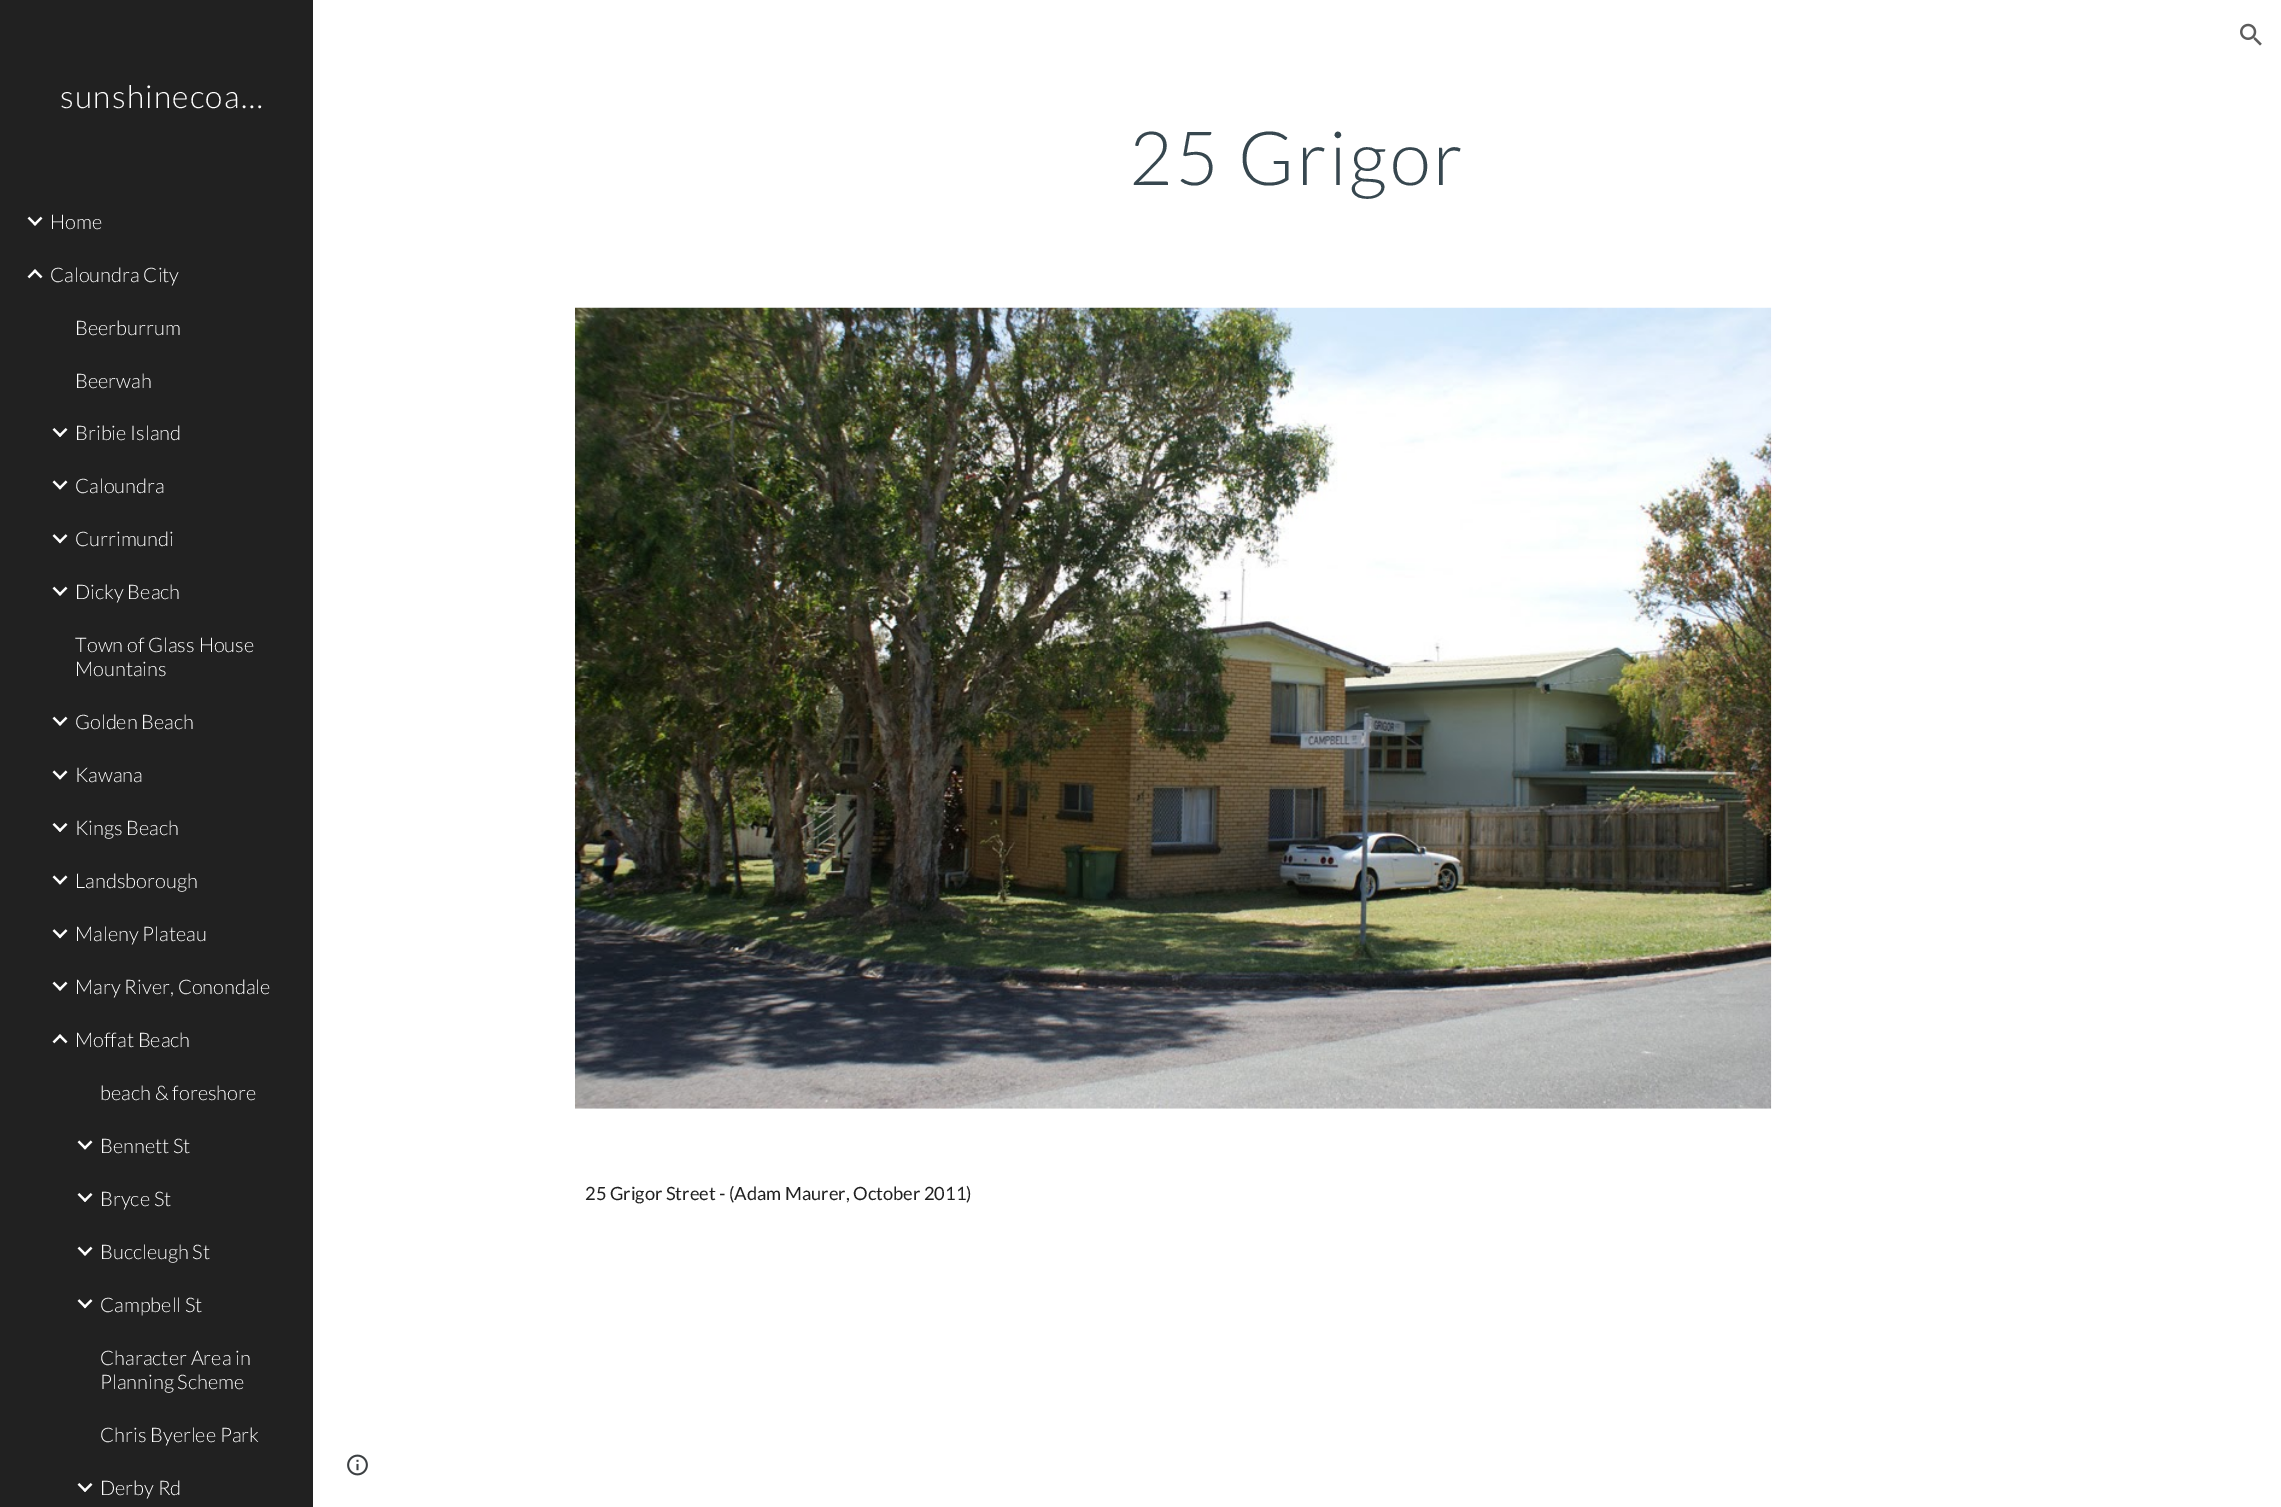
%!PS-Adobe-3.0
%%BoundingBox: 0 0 2281 1507
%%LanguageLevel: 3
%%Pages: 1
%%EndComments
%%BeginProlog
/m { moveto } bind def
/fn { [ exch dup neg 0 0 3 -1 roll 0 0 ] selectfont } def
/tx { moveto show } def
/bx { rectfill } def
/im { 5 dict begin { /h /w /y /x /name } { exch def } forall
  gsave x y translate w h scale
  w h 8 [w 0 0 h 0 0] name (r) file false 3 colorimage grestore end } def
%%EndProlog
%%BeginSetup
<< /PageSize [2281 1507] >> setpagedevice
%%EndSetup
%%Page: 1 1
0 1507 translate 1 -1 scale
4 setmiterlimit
1 setgray
0 0 2281 1507 bx
(image0.raw) 2240 23 22 23 im
0.129 setgray
0 0 313 1507 bx
/Lato-Light 31.75 fn
1 setgray
60 108 m 1.25 0 (sunshinecoa…) ashow
(image1.raw) 27 216 16 10 im
/Lato-Light 20 fn
(Home) 50 229 tx
(image2.raw) 27 269 16 10 im
(Caloundra City) 50 282 tx
(Beerburrum) 75 335 tx
(Beerwah) 75 388 tx
(image3.raw) 52 428 16 9 im
(Bribie Island) 75 440 tx
(image4.raw) 52 480 16 10 im
(Caloundra) 75 493 tx
(image5.raw) 52 534 16 10 im
(Currimundi) 75 546 tx
(image1.raw) 52 586 16 10 im
(Dicky Beach) 75 599 tx
(Town of Glass House) 75 652 tx
(Mountains) 75 676 tx
(image1.raw) 52 716 16 10 im
(Golden Beach) 75 729 tx
(image4.raw) 52 770 16 10 im
(Kawana) 75 782 tx
(image3.raw) 52 823 16 9 im
(Kings Beach) 75 835 tx
(image4.raw) 52 875 16 10 im
(Landsborough) 75 888 tx
(image5.raw) 52 929 16 10 im
(Maleny Plateau) 75 941 tx
(image1.raw) 52 981 16 10 im
(Mary River, Conondale) 75 994 tx
(image2.raw) 52 1034 16 10 im
(Moffat Beach) 75 1047 tx
(beach & foreshore) 100 1100 tx
(image4.raw) 77 1140 16 10 im
(Bennett St) 100 1153 tx
(image3.raw) 77 1193 16 9 im
(Bryce St) 100 1206 tx
(image1.raw) 77 1246 16 10 im
(Buccleugh St) 100 1259 tx
(image5.raw) 77 1299 16 10 im
(Campbell St) 100 1312 tx
(Character Area in) 100 1365 tx
(Planning Scheme) 100 1389 tx
(Chris Byerlee Park) 100 1442 tx
(image3.raw) 77 1483 16 9 im
(Derby Rd) 100 1495 tx
/Lato-Light 75 fn
0.216 0.278 0.31 setrgbcolor
1129 185 m 2.5 0 (25 Grigor) ashow
(image6.raw) 575 307 1197 802 im
/Lato-Regular 18.3 fn
0.129 setgray
(25 Grigor Street - \(Adam Maurer, October 2011\)) 585 1200 tx
(image7.raw) 347 1454 21 22 im
showpage
%%EOF
